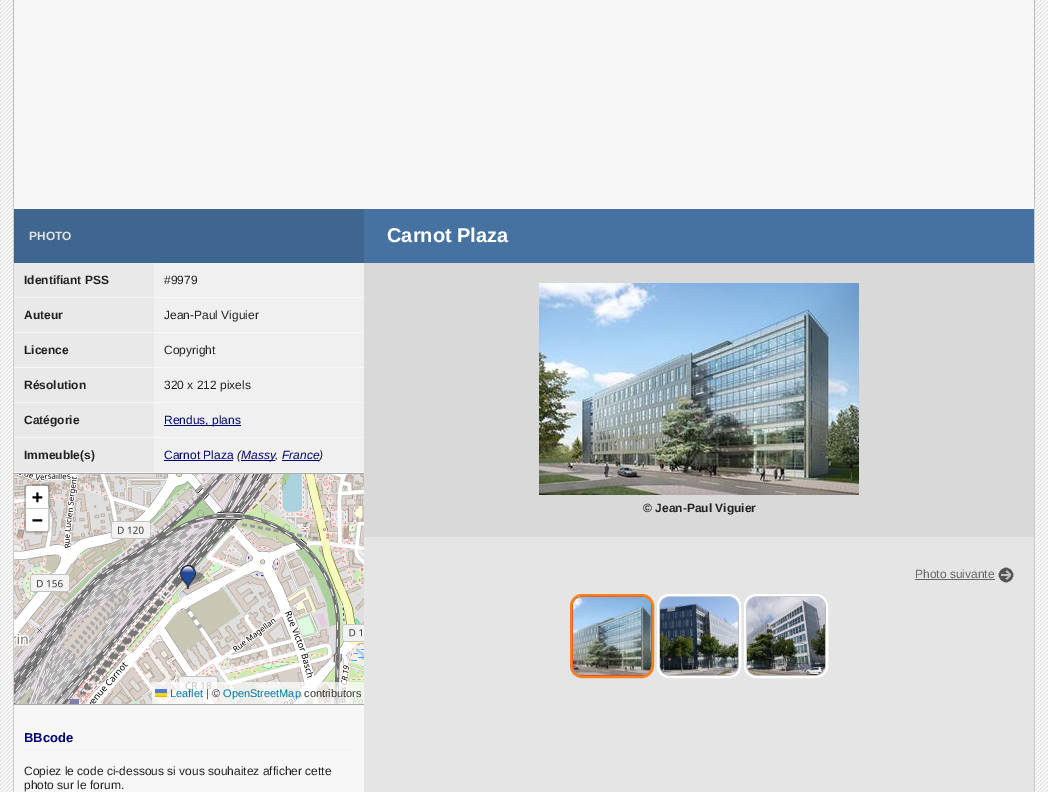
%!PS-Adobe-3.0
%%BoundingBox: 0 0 1048 792
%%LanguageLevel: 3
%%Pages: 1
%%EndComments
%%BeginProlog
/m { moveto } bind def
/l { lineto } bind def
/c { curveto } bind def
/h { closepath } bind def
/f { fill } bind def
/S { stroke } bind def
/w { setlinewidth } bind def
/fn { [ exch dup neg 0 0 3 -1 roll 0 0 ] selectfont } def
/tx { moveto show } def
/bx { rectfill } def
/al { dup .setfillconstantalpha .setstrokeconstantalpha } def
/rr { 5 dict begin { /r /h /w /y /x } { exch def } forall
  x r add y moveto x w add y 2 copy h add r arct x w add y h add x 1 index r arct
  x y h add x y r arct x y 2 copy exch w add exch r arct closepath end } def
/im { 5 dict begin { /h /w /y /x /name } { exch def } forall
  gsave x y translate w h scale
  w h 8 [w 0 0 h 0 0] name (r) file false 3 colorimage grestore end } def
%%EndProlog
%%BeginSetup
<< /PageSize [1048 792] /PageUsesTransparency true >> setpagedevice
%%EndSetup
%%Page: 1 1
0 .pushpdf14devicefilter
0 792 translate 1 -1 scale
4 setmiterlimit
1 setgray
0 0 1048 792 bx
(image0.raw) 0 0 1048 792 im
0.969 setgray
14 0 1020 792 bx
0.722 setgray
1034 0 1 199 bx
13 0 1 199 bx
0.796 setgray
1034 199 1 593 bx
13 199 1 593 bx
0.243 0.4 0.561 setrgbcolor
14 209 350 54 bx
/LiberationSans-Bold 12 fn
0.878 setgray
(PHOTO) 29 240 tx
0.275 0.447 0.631 setrgbcolor
364 209 670 54 bx
/LiberationSans-Bold 20 fn
1 setgray
(Carnot Plaza) 387 242 tx
0.914 setgray
14 263 140 34 bx
/LiberationSans-Bold 12 fn
0.133 setgray
(Identifiant PSS) 24 284 tx
0.941 setgray
154 263 210 34 bx
/LiberationSans-Regular 12 fn
0.133 setgray
(#9979) 164 284 tx
0.914 setgray
14 298 140 34 bx
/LiberationSans-Bold 12 fn
0.133 setgray
(Auteur) 24 319 tx
0.941 setgray
154 298 210 34 bx
/LiberationSans-Regular 12 fn
0.133 setgray
(Jean-Paul Viguier) 164 319 tx
0.914 setgray
14 333 140 34 bx
/LiberationSans-Bold 12 fn
0.133 setgray
(Licence) 24 354 tx
0.941 setgray
154 333 210 34 bx
/LiberationSans-Regular 12 fn
0.133 setgray
(Copyright) 164 354 tx
0.914 setgray
14 368 140 34 bx
/LiberationSans-Bold 12 fn
0.133 setgray
(Résolution) 24 389 tx
0.941 setgray
154 368 210 34 bx
/LiberationSans-Regular 12 fn
0.133 setgray
(320 x 212 pixels) 164 389 tx
0.914 setgray
14 403 140 34 bx
/LiberationSans-Bold 12 fn
0.133 setgray
(Catégorie) 24 424 tx
0.941 setgray
154 403 210 34 bx
0 0 0.467 setrgbcolor
164 425 77 1 bx
/LiberationSans-Regular 12 fn
(Rendus, plans) 164 424 tx
0.914 setgray
14 438 140 34 bx
/LiberationSans-Bold 12 fn
0.133 setgray
(Immeuble\(s\)) 24 459 tx
0.941 setgray
154 438 210 34 bx
/LiberationSans-Regular 12 fn
0 0 0.467 setrgbcolor
(Carnot Plaza) 164 459 tx
164 460 69 1 bx
/LiberationSans-Italic 12 fn
0.133 setgray
(\() 237 459 tx
0 0 0.467 setrgbcolor
241 460 34 1 bx
(Massy) 241 459 tx
0.133 setgray
(,) 275 459 tx
0 0 0.467 setrgbcolor
282 460 37 1 bx
(France) 282 459 tx
0.133 setgray
(\)) 319 459 tx
0.667 setgray
14 473 350 1 bx
14 704 350 1 bx
(image1.raw) 14 474 103 181 im
(image2.raw) 117 474 247 181 im
(image3.raw) 14 655 103 49 im
(image4.raw) 117 655 247 49 im
(image6.raw) 181 572 24 17 im
(image5.raw) 180 565 16 24 im
0.2 al
0 setgray
2 w
25 485 24 47 3 rr S
1 al
1 setgray
28 486 m 46 486 l 47 486 48 487 48 488 c 48 509 l 26 509 l 26 488 l 26 487 27 486 28 486 c h f
0.8 setgray
26 508 22 1 bx
/DejaVuSansMono-Bold 18 fn
0 setgray
(+) 32 503 tx
1 setgray
26 509 m 48 509 l 48 529 l 48 530 47 531 46 531 c 28 531 l 27 531 26 530 26 529 c h f
0 setgray
(−) 32 526 tx
0.7 al
1 setgray
152 682 212 22 bx
/LiberationSans-Regular 11 fn
1 al
0 0.471 0.659 setrgbcolor
(Leaflet) 170 697 tx
0.298 0.482 0.882 setrgbcolor
155 689 12 4 bx
1 0.835 0 setrgbcolor
155 693 12 3 bx
0.878 0.737 0 setrgbcolor
155 696 12 1 bx
0.2 setgray
(| ©) 206 697 tx
0 0.471 0.659 setrgbcolor
(OpenStreetMap) 223 697 tx
0.2 setgray
(contributors) 304 697 tx
0.941 setgray
24 749 330 1 bx
/LiberationSans-Bold 13 fn
0 0 0.467 setrgbcolor
(BBcode) 24 742 tx
/LiberationSans-Regular 12 fn
0.133 setgray
(Copiez le code ci-dessous si vous souhaitez afficher cette) 24 775 tx
(photo sur le forum.) 24 789 tx
0.898 setgray
364 537 670 255 bx
0.851 setgray
364 263 670 274 bx
(image7.raw) 539 283 320 212 im
/LiberationSans-Bold 12 fn
0.133 setgray
(© Jean-Paul Viguier) 643 512 tx
/LiberationSans-Regular 12 fn
0.4 setgray
(Photo suivante) 915 578 tx
915 579 80 1 bx
(image8.raw) 998 567 16 16 im
0.925 0.31 0.149 setrgbcolor
1 w
572.5 596.5 79 79 9.5 rr S
(image9.raw) 573 597 78 78 im
0.961 0.51 0.125 setrgbcolor
2 w
571 595 82 82 11 rr S
0.733 setgray
1 w
659.5 596.5 79 79 9.5 rr S
(image10.raw) 660 597 78 78 im
1 setgray
2 w
658 595 82 82 11 rr S
0.733 setgray
1 w
746.5 596.5 79 79 9.5 rr S
(image11.raw) 747 597 78 78 im
1 setgray
2 w
745 595 82 82 11 rr S
.poppdf14devicefilter showpage
%%EOF
